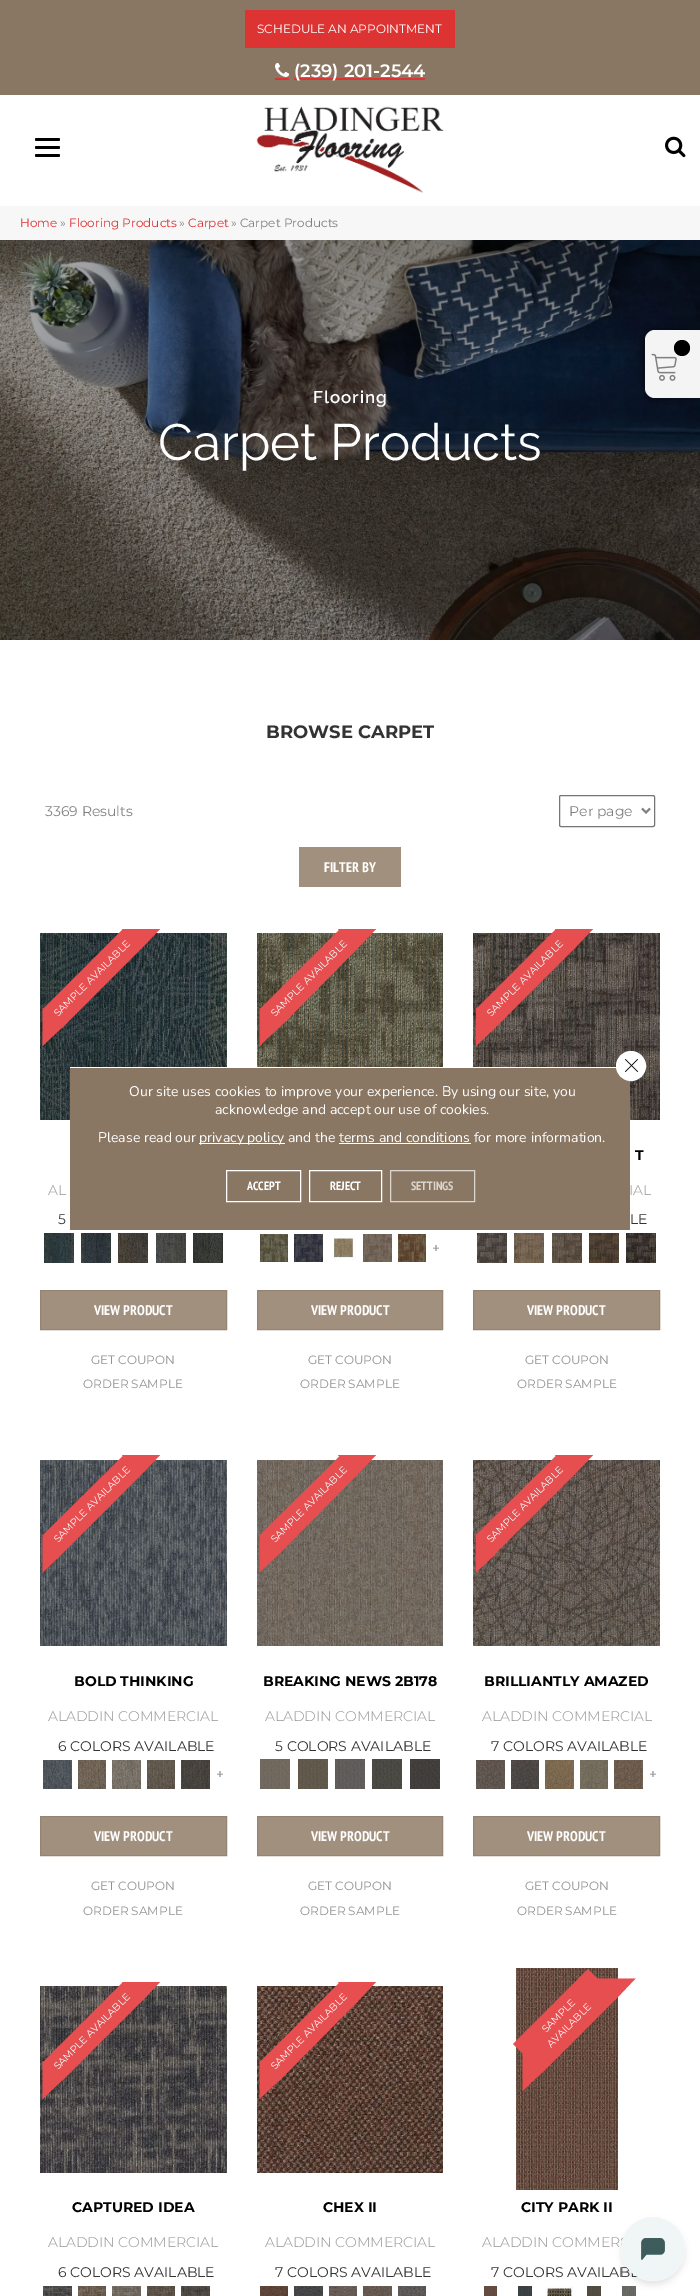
%!PS-Adobe-3.0
%%BoundingBox: 0 0 700 2296
%%LanguageLevel: 3
%%Pages: 1
%%EndComments
%%BeginProlog
/m { moveto } bind def
/l { lineto } bind def
/c { curveto } bind def
/h { closepath } bind def
/f { fill } bind def
/S { stroke } bind def
/q { gsave } bind def
/Q { grestore } bind def
/w { setlinewidth } bind def
/fn { [ exch dup neg 0 0 3 -1 roll 0 0 ] selectfont } def
/tx { moveto show } def
/bx { rectfill } def
/al { dup .setfillconstantalpha .setstrokeconstantalpha } def
/ci { newpath 0 360 arc closepath } def
/rr { 5 dict begin { /r /h /w /y /x } { exch def } forall
  x r add y moveto x w add y 2 copy h add r arct x w add y h add x 1 index r arct
  x y h add x y r arct x y 2 copy exch w add exch r arct closepath end } def
/sh { 12 dict begin { /a /b /q /h /w /y /x } { exch def } forall gsave /was 0 def
  9 -2 -9 { dup b mul 4 div /e exch def 1 sub .425 mul 2.718 exch exp 1 add a .99 .min exch div /now exch def
    1 1 now sub 1 was sub div sub al /was now def
    w h .min e 2 mul add 0 gt { x e sub y e sub w e 2 mul add h e 2 mul add
      q e add b .6 mul add w h .min 2 div e add .min 0 .max rr fill } if } for grestore end } def
/im { 5 dict begin { /h /w /y /x /name } { exch def } forall
  gsave x y translate w h scale
  w h 8 [w 0 0 h 0 0] name (r) file false 3 colorimage grestore end } def
%%EndProlog
%%BeginSetup
<< /PageSize [700 2296] /PageUsesTransparency true >> setpagedevice
%%EndSetup
%%Page: 1 1
0 .pushpdf14devicefilter
0 2296 translate 1 -1 scale
4 setmiterlimit
1 setgray
0 0 700 2296 bx
0.537 0.467 0.388 setrgbcolor
0 0 700 95 bx
0.867 0.2 0.2 setrgbcolor
245 10 210 38 bx
/Montserrat-Regular 12 fn
1 setgray
(SCHEDULE AN APPOINTMENT) 257 33 tx
(image0.raw) 275 62 15 15 im
0.867 0.2 0.2 setrgbcolor
294 78 131 2 bx
/Montserrat-SemiBold 18 fn
1 setgray
(\(239\) 201-2544) 294 77 tx
0.867 0.2 0.2 setrgbcolor
275 78 14 2 bx
(image4.raw) 0 240 700 400 im
0 setgray
646 331 53 66 9 4.5 0.75 sh
0.957 setgray
655 330 m 700 330 l 700 398 l 655 398 l 649.5 398 645 393.5 645 388 c 645 340 l 645 334.5 649.5 330 655 330 c h f
(image1.raw) 651 353 26 28 im
0 setgray
682 348 8 ci f
(image2.raw) 256 106 188 87 im
(image3.raw) 665 136 21 22 im
0.969 setgray
0 206 700 34 bx
/Montserrat-Regular 12 fn
0.867 0.2 0.2 setrgbcolor
(Home) 20 227 tx
0.502 setgray
(») 60 227 tx
0.867 0.2 0.2 setrgbcolor
(Flooring Products) 69 227 tx
0.502 setgray
(») 179 227 tx
0.867 0.2 0.2 setrgbcolor
(Carpet) 188 227 tx
0.502 setgray
(» Carpet Products) 231 227 tx
/Raleway-SemiBold 17 fn
1 setgray
313 403 m 1 0 (Flooring) ashow
/Raleway-Regular 51 fn
(Carpet Products) 158 460 tx
/Montserrat-Bold 18 fn
0.2 setgray
(BROWSE CARPET) 266 738 tx
/Montserrat-Regular 14 fn
0.502 setgray
(3369 Results) 45 816 tx
0.463 setgray
559.5 795.5 95 31 1.5 rr S
0.502 setgray
2 w
642 808.5 m 646 812.5 l 650 808.5 l S
(Per page) 569 816 tx
0.631 0.565 0.494 setrgbcolor
299 847 102 40 bx
/PTSansNarrow-Bold 14 fn
1 setgray
(FILTER BY) 324 872 tx
(image5.raw) 40 933 187 187 im
0.902 0.306 0.314 setrgbcolor
43 1009 m 123 929 l 142 948 l 62 1028 l h f
/Montserrat-Regular 10 fn
1 setgray
q 58 1017 translate -45 rotate 0 0 m (SAMPLE AVAILABLE) show Q
0.902 0.306 0.314 setrgbcolor
122 929 m 160 929 l 141 949 l h f
42.5 1046 m 42.5 1008 l 62.5 1027 l h f
/Montserrat-Light 14 fn
0.573 setgray
(AL) 48 1195 tx
/Montserrat-Regular 14 fn
0.2 setgray
(5) 58 1224 tx
(image6.raw) 44 1233 30 30 im
(image7.raw) 81 1233 30 30 im
(image8.raw) 118 1233 30 30 im
(image9.raw) 156 1233 30 30 im
(image10.raw) 193 1233 30 30 im
0.631 0.565 0.494 setrgbcolor
40.5 1290.5 m 226.5 1290.5 l 226.5 1329.5 l 40.5 1329.5 l h q f Q
0.584 0.518 0.447 setrgbcolor
1 w
S
/PTSansNarrow-Bold 14 fn
1 setgray
(VIEW PRODUCT) 94 1315 tx
/Montserrat-Regular 12 fn
0.573 setgray
(GET COUPON) 91 1364 tx
(ORDER SAMPLE) 83 1388 tx
(image11.raw) 257 933 186 134 im
0.902 0.306 0.314 setrgbcolor
260 1009 m 340 929 l 358 948 l 279 1028 l h f
/Montserrat-Regular 10 fn
1 setgray
q 275 1017 translate -45 rotate 0 0 m (SAMPLE AVAILABLE) show Q
0.902 0.306 0.314 setrgbcolor
338 929 m 376 929 l 357 949 l h f
259.5 1046 m 259.5 1008 l 279.5 1027 l h f
(image12.raw) 260 1234 28 28 im
(image13.raw) 294 1234 29 28 im
(image14.raw) 333 1234 23 27 im
(image15.raw) 363 1234 29 28 im
(image16.raw) 398 1234 28 28 im
/Montserrat-Regular 14 fn
0.502 setgray
(+) 432 1253 tx
0.631 0.565 0.494 setrgbcolor
257.5 1290.5 m 442.5 1290.5 l 442.5 1329.5 l 257.5 1329.5 l h q f Q
0.584 0.518 0.447 setrgbcolor
S
/PTSansNarrow-Bold 14 fn
1 setgray
(VIEW PRODUCT) 311 1315 tx
/Montserrat-Regular 12 fn
0.573 setgray
(GET COUPON) 308 1364 tx
(ORDER SAMPLE) 300 1388 tx
(image17.raw) 473 933 187 187 im
0.902 0.306 0.314 setrgbcolor
476 1009 m 556 929 l 575 948 l 495 1028 l h f
/Montserrat-Regular 10 fn
1 setgray
q 491 1017 translate -45 rotate 0 0 m (SAMPLE AVAILABLE) show Q
0.902 0.306 0.314 setrgbcolor
555 929 m 593 929 l 574 949 l h f
476 1046 m 476 1008 l 496 1027 l h f
/Montserrat-Bold 14 fn
0 setgray
(T) 635 1160 tx
/Montserrat-Light 14 fn
0.573 setgray
(IAL) 629 1195 tx
/Montserrat-Regular 14 fn
0.2 setgray
(LE) 630 1224 tx
(image18.raw) 477 1233 30 30 im
(image19.raw) 514 1233 30 30 im
(image20.raw) 552 1233 30 30 im
(image21.raw) 589 1233 30 30 im
(image22.raw) 626 1233 30 30 im
0.631 0.565 0.494 setrgbcolor
473.5 1290.5 m 659.5 1290.5 l 659.5 1329.5 l 473.5 1329.5 l h q f Q
0.584 0.518 0.447 setrgbcolor
S
/PTSansNarrow-Bold 14 fn
1 setgray
(VIEW PRODUCT) 527 1315 tx
/Montserrat-Regular 12 fn
0.573 setgray
(GET COUPON) 525 1364 tx
(ORDER SAMPLE) 517 1388 tx
(image23.raw) 40 1460 187 186 im
0.902 0.306 0.314 setrgbcolor
43 1535 m 123 1456 l 142 1474 l 62 1554 l h f
/Montserrat-Regular 10 fn
1 setgray
q 58 1543 translate -45 rotate 0 0 m (SAMPLE AVAILABLE) show Q
0.902 0.306 0.314 setrgbcolor
122 1455 m 160 1455 l 141 1475 l h f
42.5 1572.5 m 42.5 1534.5 l 62.5 1553.5 l h f
/Montserrat-Bold 14 fn
0 setgray
(BOLD THINKING) 74 1686 tx
/Montserrat-Light 14 fn
0.573 setgray
(ALADDIN COMMERCIAL) 48 1721 tx
/Montserrat-Regular 14 fn
0.2 setgray
(6 COLORS AVAILABLE) 58 1751 tx
(image24.raw) 43 1760 29 29 im
(image25.raw) 78 1760 28 29 im
(image26.raw) 112 1760 29 29 im
(image27.raw) 147 1760 28 29 im
(image28.raw) 181 1760 29 29 im
0.502 setgray
(+) 216 1779 tx
0.631 0.565 0.494 setrgbcolor
40.5 1816.5 m 226.5 1816.5 l 226.5 1855.5 l 40.5 1855.5 l h q f Q
0.584 0.518 0.447 setrgbcolor
S
/PTSansNarrow-Bold 14 fn
1 setgray
(VIEW PRODUCT) 94 1841 tx
/Montserrat-Regular 12 fn
0.573 setgray
(GET COUPON) 91 1890 tx
(ORDER SAMPLE) 83 1915 tx
(image29.raw) 257 1460 186 186 im
0.902 0.306 0.314 setrgbcolor
260 1535 m 340 1456 l 358 1474 l 279 1554 l h f
/Montserrat-Regular 10 fn
1 setgray
q 275 1543 translate -45 rotate 0 0 m (SAMPLE AVAILABLE) show Q
0.902 0.306 0.314 setrgbcolor
338 1455 m 376 1455 l 357 1475 l h f
259.5 1572.5 m 259.5 1534.5 l 279.5 1553.5 l h f
/Montserrat-Bold 14 fn
0 setgray
(BREAKING NEWS 2B178) 263 1686 tx
/Montserrat-Light 14 fn
0.573 setgray
(ALADDIN COMMERCIAL) 265 1721 tx
/Montserrat-Regular 14 fn
0.2 setgray
(5 COLORS AVAILABLE) 275 1751 tx
(image30.raw) 260 1759 30 30 im
(image31.raw) 298 1759 30 30 im
(image32.raw) 335 1759 30 30 im
(image33.raw) 372 1759 30 30 im
(image34.raw) 410 1759 30 30 im
0.631 0.565 0.494 setrgbcolor
257.5 1816.5 m 442.5 1816.5 l 442.5 1855.5 l 257.5 1855.5 l h q f Q
0.584 0.518 0.447 setrgbcolor
S
/PTSansNarrow-Bold 14 fn
1 setgray
(VIEW PRODUCT) 311 1841 tx
/Montserrat-Regular 12 fn
0.573 setgray
(GET COUPON) 308 1890 tx
(ORDER SAMPLE) 300 1915 tx
(image35.raw) 473 1460 187 186 im
0.902 0.306 0.314 setrgbcolor
476 1535 m 556 1456 l 575 1474 l 495 1554 l h f
/Montserrat-Regular 10 fn
1 setgray
q 491 1543 translate -45 rotate 0 0 m (SAMPLE AVAILABLE) show Q
0.902 0.306 0.314 setrgbcolor
555 1455 m 593 1455 l 574 1475 l h f
476 1572.5 m 476 1534.5 l 496 1553.5 l h f
/Montserrat-Bold 14 fn
0 setgray
(BRILLIANTLY AMAZED) 484 1686 tx
/Montserrat-Light 14 fn
0.573 setgray
(ALADDIN COMMERCIAL) 482 1721 tx
/Montserrat-Regular 14 fn
0.2 setgray
(7 COLORS AVAILABLE) 491 1751 tx
(image36.raw) 476 1760 29 29 im
(image37.raw) 511 1760 28 29 im
(image38.raw) 545 1760 29 29 im
(image39.raw) 580 1760 28 29 im
(image40.raw) 614 1760 29 29 im
0.502 setgray
(+) 649 1779 tx
0.631 0.565 0.494 setrgbcolor
473.5 1816.5 m 659.5 1816.5 l 659.5 1855.5 l 473.5 1855.5 l h q f Q
0.584 0.518 0.447 setrgbcolor
S
/PTSansNarrow-Bold 14 fn
1 setgray
(VIEW PRODUCT) 527 1841 tx
/Montserrat-Regular 12 fn
0.573 setgray
(GET COUPON) 525 1890 tx
(ORDER SAMPLE) 517 1915 tx
(image41.raw) 40 1986 187 187 im
0.902 0.306 0.314 setrgbcolor
43 2062 m 123 1982 l 142 2001 l 62 2081 l h f
/Montserrat-Regular 10 fn
1 setgray
q 58 2070 translate -45 rotate 0 0 m (SAMPLE AVAILABLE) show Q
0.902 0.306 0.314 setrgbcolor
122 1982 m 160 1982 l 141 2002 l h f
42.5 2099 m 42.5 2061 l 62.5 2080 l h f
/Montserrat-Bold 14 fn
0 setgray
(CAPTURED IDEA) 72 2212 tx
/Montserrat-Light 14 fn
0.573 setgray
(ALADDIN COMMERCIAL) 48 2247 tx
/Montserrat-Regular 14 fn
0.2 setgray
(6 COLORS AVAILABLE) 58 2277 tx
(image42.raw) 43 2286 29 10 im
(image43.raw) 78 2286 28 10 im
(image44.raw) 112 2286 29 10 im
(image45.raw) 147 2286 28 10 im
(image46.raw) 181 2286 29 10 im
(image47.raw) 257 1986 186 187 im
0.902 0.306 0.314 setrgbcolor
260 2062 m 340 1982 l 358 2001 l 279 2081 l h f
/Montserrat-Regular 10 fn
1 setgray
q 275 2070 translate -45 rotate 0 0 m (SAMPLE AVAILABLE) show Q
0.902 0.306 0.314 setrgbcolor
338 1982 m 376 1982 l 357 2002 l h f
259.5 2099 m 259.5 2061 l 279.5 2080 l h f
/Montserrat-Bold 14 fn
0 setgray
(CHEX II) 323 2212 tx
/Montserrat-Light 14 fn
0.573 setgray
(ALADDIN COMMERCIAL) 265 2247 tx
/Montserrat-Regular 14 fn
0.2 setgray
(7 COLORS AVAILABLE) 275 2277 tx
(image48.raw) 260 2286 28 10 im
(image49.raw) 294 2286 29 10 im
(image50.raw) 329 2286 28 10 im
(image51.raw) 363 2286 29 10 im
(image52.raw) 398 2286 28 10 im
(image53.raw) 516 1968 102 222 im
0.902 0.306 0.314 setrgbcolor
513 2044 m 588 1969 l 617 1998 l 542 2073 l h f
597.5 1978.5 m 635.5 1978.5 l 616.5 1998.5 l h f
/Montserrat-Regular 10 fn
1 setgray
q 546 2033 translate -45 rotate 0 0 m (SAMPLE) show Q
q 551 2048 translate -45 rotate 0 0 m (AVAILABLE) show Q
0.902 0.306 0.314 setrgbcolor
522.5 2091 m 522.5 2053 l 542.5 2072 l h f
/Montserrat-Bold 14 fn
0 setgray
(CITY PARK II) 521 2212 tx
/Montserrat-Light 14 fn
0.573 setgray
(ALADDIN COMMER) 482 2247 tx
/Montserrat-Regular 14 fn
0.2 setgray
(7 COLORS AVAILABL) 491 2277 tx
(image54.raw) 484 2286 13 10 im
(image55.raw) 518 2286 14 10 im
(image56.raw) 545 2286 28 10 im
(image57.raw) 587 2286 14 10 im
(image58.raw) 622 2286 14 10 im
0 setgray
35 146 25 3 1.5 rr f
35 138 25 3 1.5 rr f
35 154 25 3 1.5 rr f
0.537 0.467 0.388 setrgbcolor
70 1068 560 162 bx
1 setgray
70 1067 547 1 bx
/Nunito-Regular 14 fn
(Our site uses cookies to improve your experience. By using our site, you) 129 1096 tx
(acknowledge and accept our use of cookies.) 215 1114 tx
(Please read our) 98 1142 tx
199 1143 86 1 bx
(privacy policy and the terms and conditions for more information.) 199 1142 tx
339 1143 132 1 bx
631 1066 14.5 ci q f Q
S
0 setgray
637.5 1059 m 638 1059.5 l 625.5 1072 l 625 1071.5 l h f
625 1059.5 m 625.5 1059 l 638 1071.5 l 637.5 1072 l h f
1 setgray
226.5 1170.5 74 31 rectstroke
/PTSansNarrow-Bold 12 fn
(ACCEPT) 247 1190 tx
309.5 1170.5 72 31 rectstroke
(REJECT) 330 1190 tx
0.863 0.839 0.816 setrgbcolor
390.5 1170.5 84 31 rectstroke
(SETTINGS) 411 1190 tx
0 setgray
621 2221 64 64 32 3 0.1 sh
(image59.raw) 621 2217 64 64 im
.poppdf14devicefilter showpage
%%EOF
